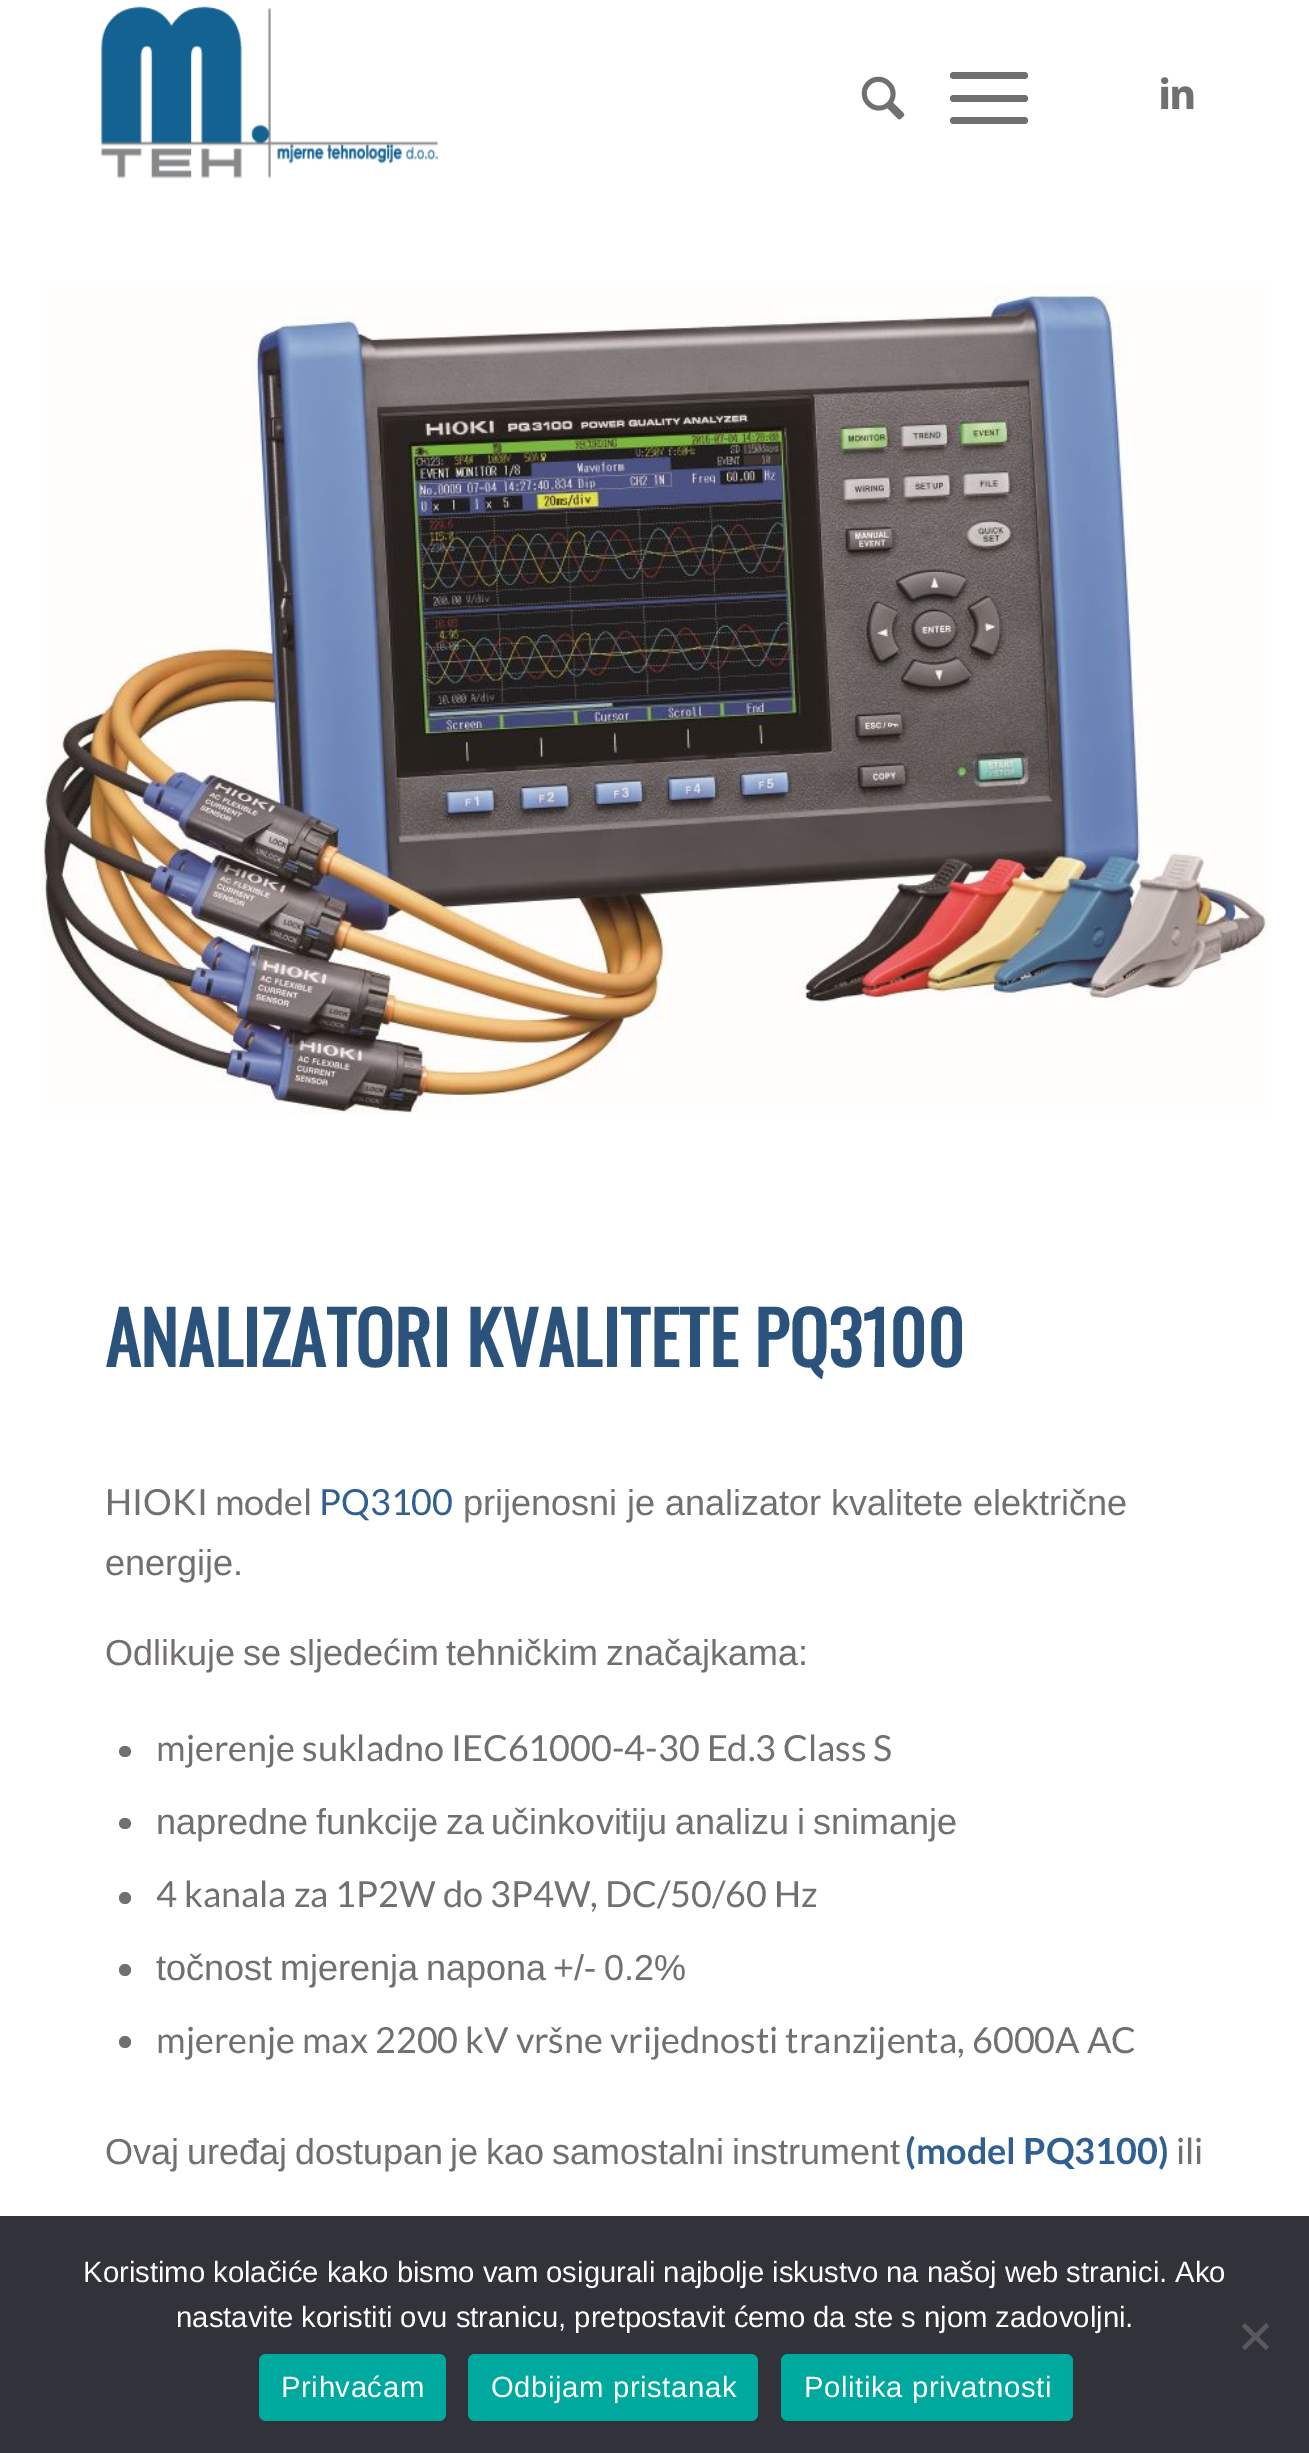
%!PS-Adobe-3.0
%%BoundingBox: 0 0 1309 2453
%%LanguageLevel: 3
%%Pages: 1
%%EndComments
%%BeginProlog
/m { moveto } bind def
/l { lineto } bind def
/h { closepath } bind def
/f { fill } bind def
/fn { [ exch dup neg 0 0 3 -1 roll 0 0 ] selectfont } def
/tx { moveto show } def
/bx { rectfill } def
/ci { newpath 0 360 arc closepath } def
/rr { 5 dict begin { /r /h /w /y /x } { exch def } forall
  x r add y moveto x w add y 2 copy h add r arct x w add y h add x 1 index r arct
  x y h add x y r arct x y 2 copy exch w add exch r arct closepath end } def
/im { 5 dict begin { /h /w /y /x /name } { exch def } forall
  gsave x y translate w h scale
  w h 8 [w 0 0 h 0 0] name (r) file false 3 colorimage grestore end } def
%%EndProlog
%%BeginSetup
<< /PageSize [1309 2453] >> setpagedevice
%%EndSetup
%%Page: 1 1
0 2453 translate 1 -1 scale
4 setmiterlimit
1 setgray
0 0 1309 2453 bx
(image0.raw) 101 6 337 173 im
(image1.raw) 861 76 44 44 im
0.447 0.439 0.435 setrgbcolor
950 95 78 7 3.5 rr f
950 72 78 7 3.5 rr f
950 117 78 7 3.5 rr f
(image2.raw) 1161 77 33 33 im
(image3.raw) 41 284 1229 830 im
/Oswald-Bold 72 fn
0.165 0.322 0.482 setrgbcolor
(ANALIZATORI KVALITETE PQ3100) 105 1367 tx
/Lato-Regular 36 fn
0.447 0.439 0.435 setrgbcolor
(HIOKI model) 105 1515 tx
0.184 0.376 0.569 setrgbcolor
(PQ3100) 319 1515 tx
/LiberationSans-Regular 36 fn
0.447 0.439 0.435 setrgbcolor
(prijenosni je analizator kvalitete električne) 463 1515 tx
(energije.) 105 1575 tx
105 1665 m -2.25 0 32 (Odlikuje se sljedećim tehničkim značajkama:) widthshow
119 1746 12 11 5.5 rr f
/Lato-Regular 36 fn
(mjerenje sukladno IEC61000-4-30 Ed.3 Class S) 156 1761 tx
119 1818 12 11 5.5 rr f
/LiberationSans-Regular 36 fn
156 1834 m -2.25 0 32 (napredne funkcije za učinkovitiju analizu i snimanje) widthshow
125 1898 6 ci f
/Lato-Regular 36 fn
(4 kanala za 1P2W do 3P4W, DC/50/60 Hz) 156 1907 tx
125 1970 6 ci f
/LiberationSans-Regular 36 fn
156 1980 m -2.25 0 32 (točnost mjerenja napona +/- 0.2%) widthshow
125 2042 6 ci f
/Lato-Regular 36 fn
(mjerenje max 2200 kV vršne vrijednosti tranzijenta, 6000A AC) 156 2053 tx
/LiberationSans-Regular 36 fn
105 2164 m -2.25 0 32 (Ovaj uređaj dostupan je kao samostalni instrument) widthshow
/Lato-Bold 36 fn
0.184 0.376 0.569 setrgbcolor
(\(model PQ3100\)) 905 2164 tx
/Lato-Regular 36 fn
0.447 0.439 0.435 setrgbcolor
(ili) 1176 2164 tx
0.196 0.196 0.227 setrgbcolor
0 2216 1309 237 bx
/LiberationSans-Regular 29.25 fn
1 setgray
(Koristimo kolačiće kako bismo vam osigurali najbolje iskustvo na našoj web stranici. Ako) 83 2282 tx
(nastavite koristiti ovu stranicu, pretpostavit ćemo da ste s njom zadovoljni.) 176 2327 tx
0.349 0.349 0.365 setrgbcolor
1266 2323 m 1269 2326.5 l 1245 2350 l 1242 2347 l h f
1242 2326.5 m 1245 2323 l 1269 2347 l 1266 2350 l h f
0 0.663 0.616 setrgbcolor
259 2354 187 67 7 rr f
1 setgray
281 2397 m 0.6 0 (Prihvaćam) ashow
0 0.663 0.616 setrgbcolor
468 2354 290 67 7 rr f
1 setgray
491 2397 m 0.6 0 (Odbijam pristanak) ashow
0 0.663 0.616 setrgbcolor
781 2354 292 67 7 rr f
1 setgray
804 2397 m 0.6 0 (Politika privatnosti) ashow
showpage
%%EOF
